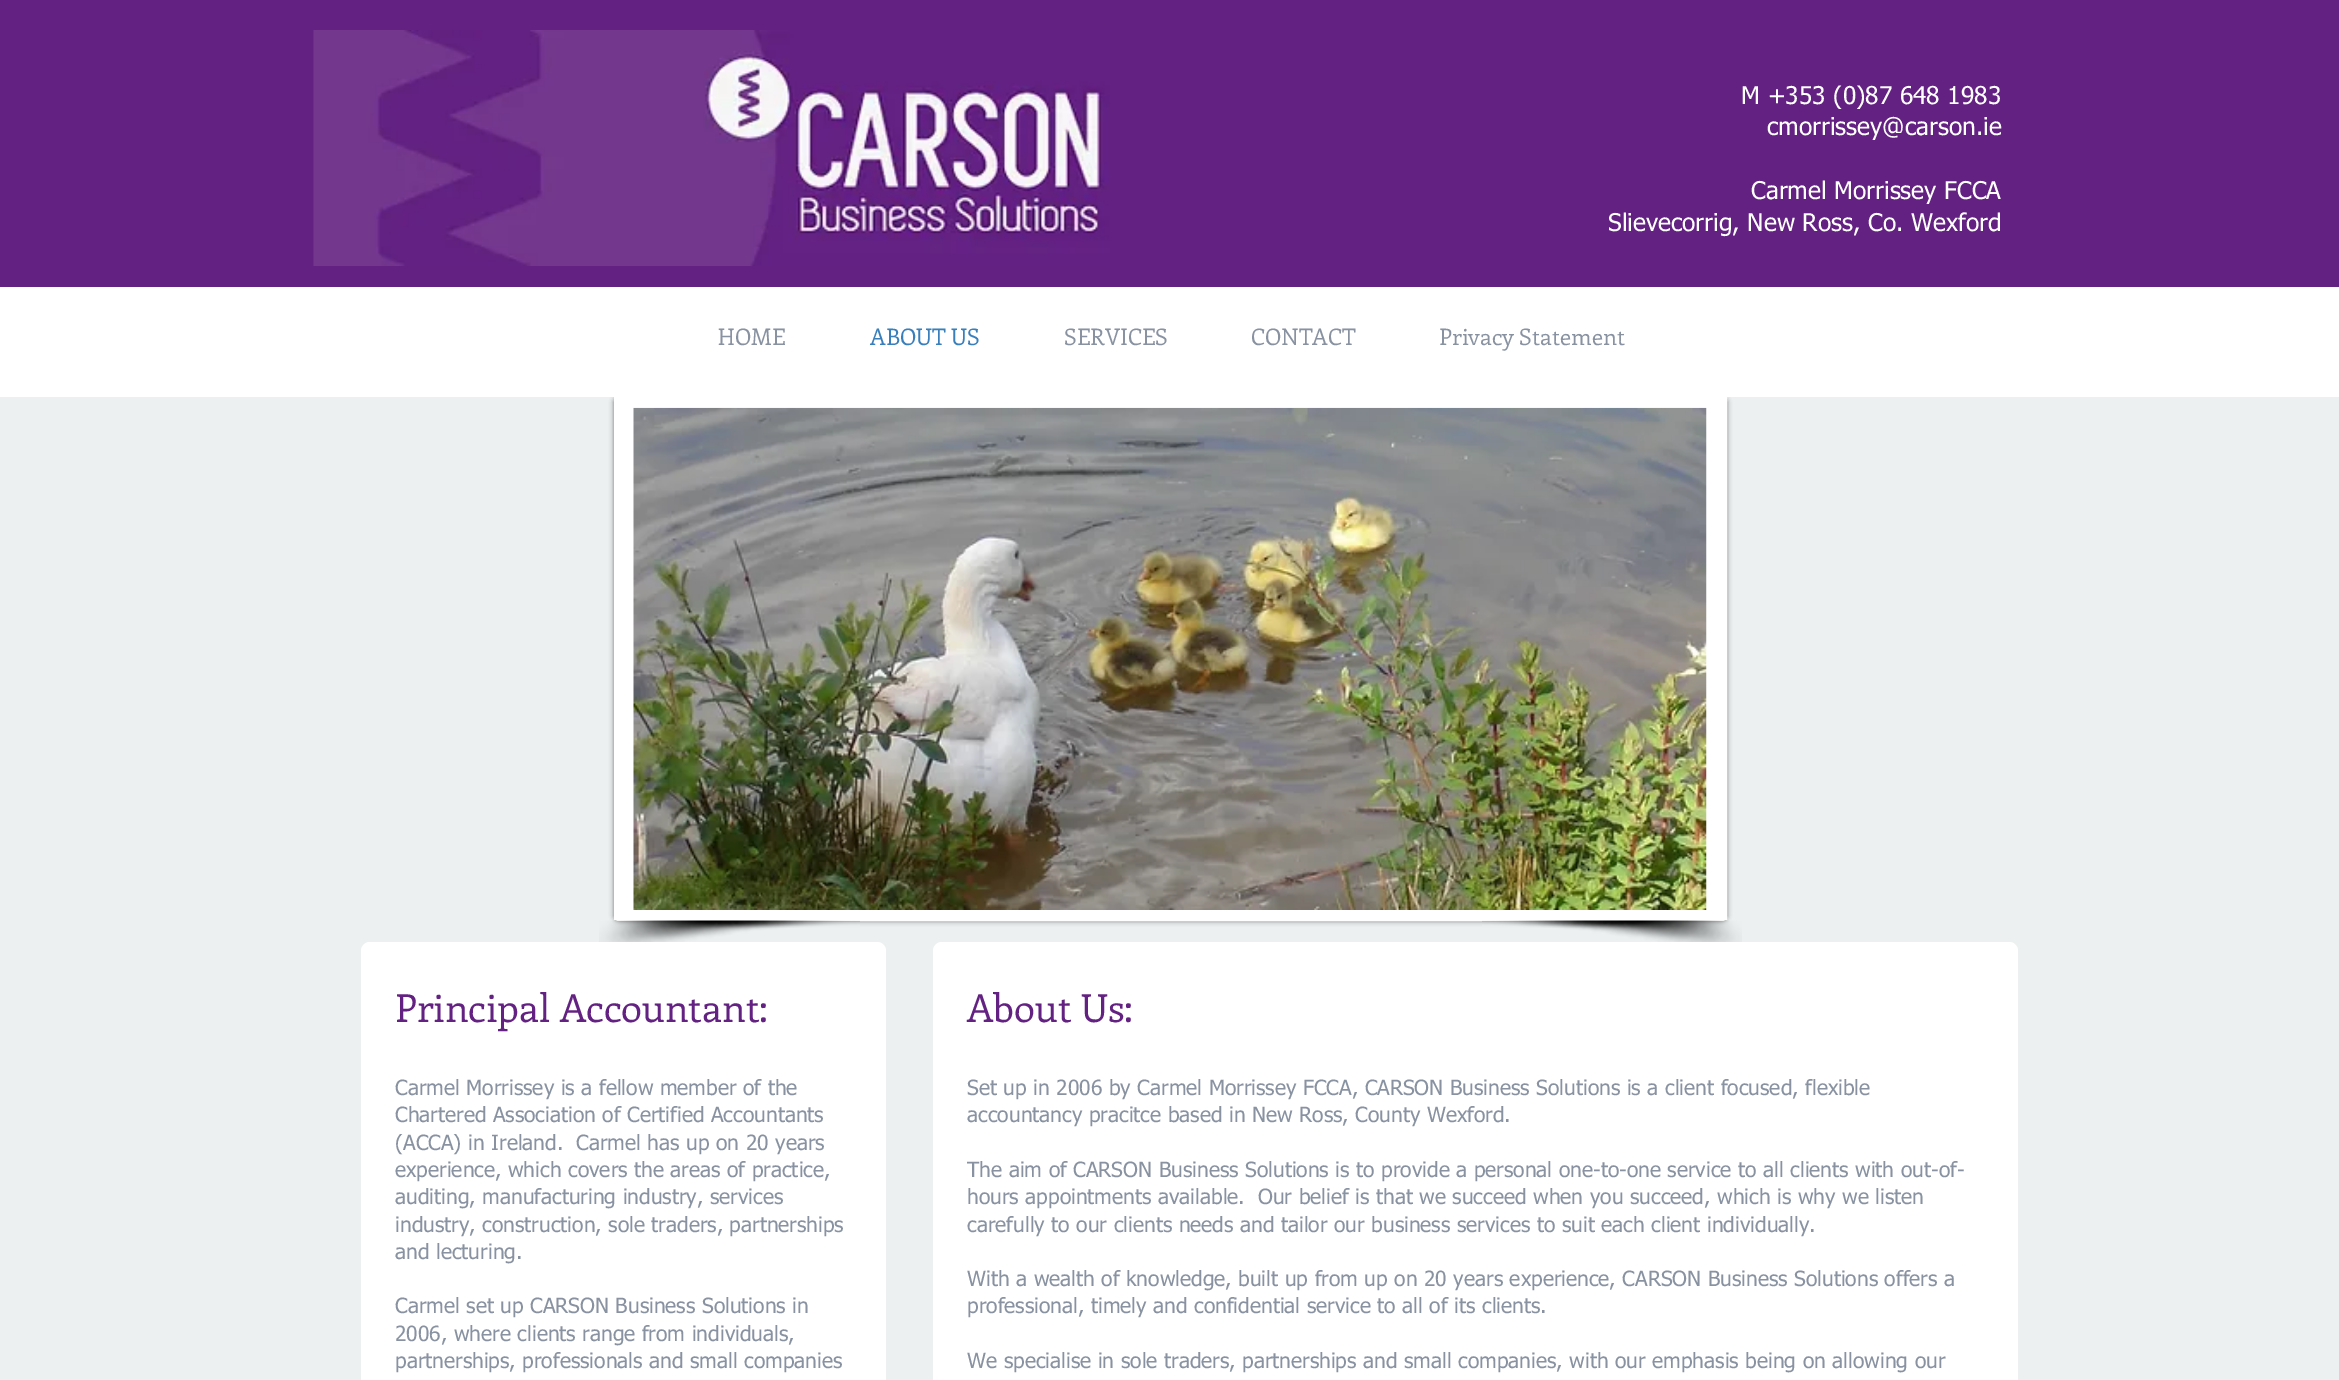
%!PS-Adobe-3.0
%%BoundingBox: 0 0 2339 1380
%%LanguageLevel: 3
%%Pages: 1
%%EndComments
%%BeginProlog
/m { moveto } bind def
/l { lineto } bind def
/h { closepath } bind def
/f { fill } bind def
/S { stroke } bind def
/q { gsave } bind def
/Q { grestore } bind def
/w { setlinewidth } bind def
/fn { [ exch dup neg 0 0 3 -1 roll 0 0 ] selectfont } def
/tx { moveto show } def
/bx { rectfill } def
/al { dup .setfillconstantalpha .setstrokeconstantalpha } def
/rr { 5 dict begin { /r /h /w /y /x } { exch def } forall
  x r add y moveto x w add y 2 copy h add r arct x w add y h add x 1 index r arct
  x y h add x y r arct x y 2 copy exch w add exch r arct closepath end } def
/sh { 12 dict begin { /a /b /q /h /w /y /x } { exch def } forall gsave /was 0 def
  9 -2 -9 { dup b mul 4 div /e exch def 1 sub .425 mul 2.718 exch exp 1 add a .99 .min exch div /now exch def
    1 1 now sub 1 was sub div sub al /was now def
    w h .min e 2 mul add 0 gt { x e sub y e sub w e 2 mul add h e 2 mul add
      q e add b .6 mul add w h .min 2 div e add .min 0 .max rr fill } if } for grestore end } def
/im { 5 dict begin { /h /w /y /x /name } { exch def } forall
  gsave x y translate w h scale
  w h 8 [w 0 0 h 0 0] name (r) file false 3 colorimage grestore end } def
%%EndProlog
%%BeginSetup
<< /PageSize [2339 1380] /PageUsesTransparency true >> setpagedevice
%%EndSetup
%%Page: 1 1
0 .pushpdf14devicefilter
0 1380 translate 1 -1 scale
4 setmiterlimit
0.925 0.941 0.945 setrgbcolor
0 0 2339 1380 bx
0.388 0.129 0.506 setrgbcolor
0 0 2339 287 bx
(image0.raw) 313 30 797 236 im
/tahoma-Regular 24.5 fn
1 setgray
(M +353 \(0\)87 648 1983) 1741 104 tx
(cmorrissey@carson.ie) 1767 135 tx
(Carmel Morrissey FCCA) 1751 199 tx
(Slievecorrig, New Ross, Co. Wexford) 1608 231 tx
0 setgray
614 397 1113 524 5 2.5 0.5 sh
1 setgray
0 287 2339 110 bx
/Enriqueta-Regular 22.75 fn
0.533 0.573 0.631 setrgbcolor
(HOME) 718 345 tx
0.22 0.498 0.733 setrgbcolor
(ABOUT US) 870 345 tx
0.533 0.573 0.631 setrgbcolor
(SERVICES) 1064 345 tx
(CONTACT) 1251 345 tx
(Privacy Statement) 1439 345 tx
1 setgray
619.5 402.5 m 1721.5 402.5 l 1721.5 915.5 l 619.5 915.5 l h q f Q
11 w
S
(image1.raw) 633 407 1074 503 im
(image2.raw) 599 920 261 22 im
(image3.raw) 1482 920 260 22 im
361 942 525 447 9 rr f
/Enriqueta-Regular 38.5 fn
0.388 0.129 0.506 setrgbcolor
(Principal Accountant:) 395 1022 tx
/tahoma-Regular 21 fn
0.533 0.573 0.631 setrgbcolor
(Carmel Morrissey is a fellow member of the) 395 1095 tx
(Chartered Association of Certified Accountants) 395 1122 tx
(\(ACCA\) in Ireland.  Carmel has up on 20 years) 395 1150 tx
(experience, which covers the areas of practice,) 395 1177 tx
(auditing, manufacturing industry, services) 395 1204 tx
(industry, construction, sole traders, partnerships) 395 1232 tx
(and lecturing.) 395 1259 tx
(Carmel set up CARSON Business Solutions in) 395 1313 tx
(2006, where clients range from individuals,) 395 1341 tx
(partnerships, professionals and small companies) 395 1368 tx
1 setgray
933 942 1085 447 9 rr f
/Enriqueta-Regular 38.5 fn
0.388 0.129 0.506 setrgbcolor
(About Us:) 967 1022 tx
/tahoma-Regular 21 fn
0.533 0.573 0.631 setrgbcolor
(Set up in 2006 by Carmel Morrissey FCCA, CARSON Business Solutions is a client focused, flexible) 967 1095 tx
(accountancy pracitce based in New Ross, County Wexford.) 967 1122 tx
(The aim of CARSON Business Solutions is to provide a personal one-to-one service to all clients with out-of-) 967 1177 tx
(hours appointments available.  Our belief is that we succeed when you succeed, which is why we listen) 967 1204 tx
(carefully to our clients needs and tailor our business services to suit each client individually.) 967 1232 tx
(With a wealth of knowledge, built up from up on 20 years experience, CARSON Business Solutions offers a) 967 1286 tx
(professional, timely and confidential service to all of its clients.) 967 1313 tx
(We specialise in sole traders, partnerships and small companies, with our emphasis being on allowing our) 967 1368 tx
.poppdf14devicefilter showpage
%%EOF
